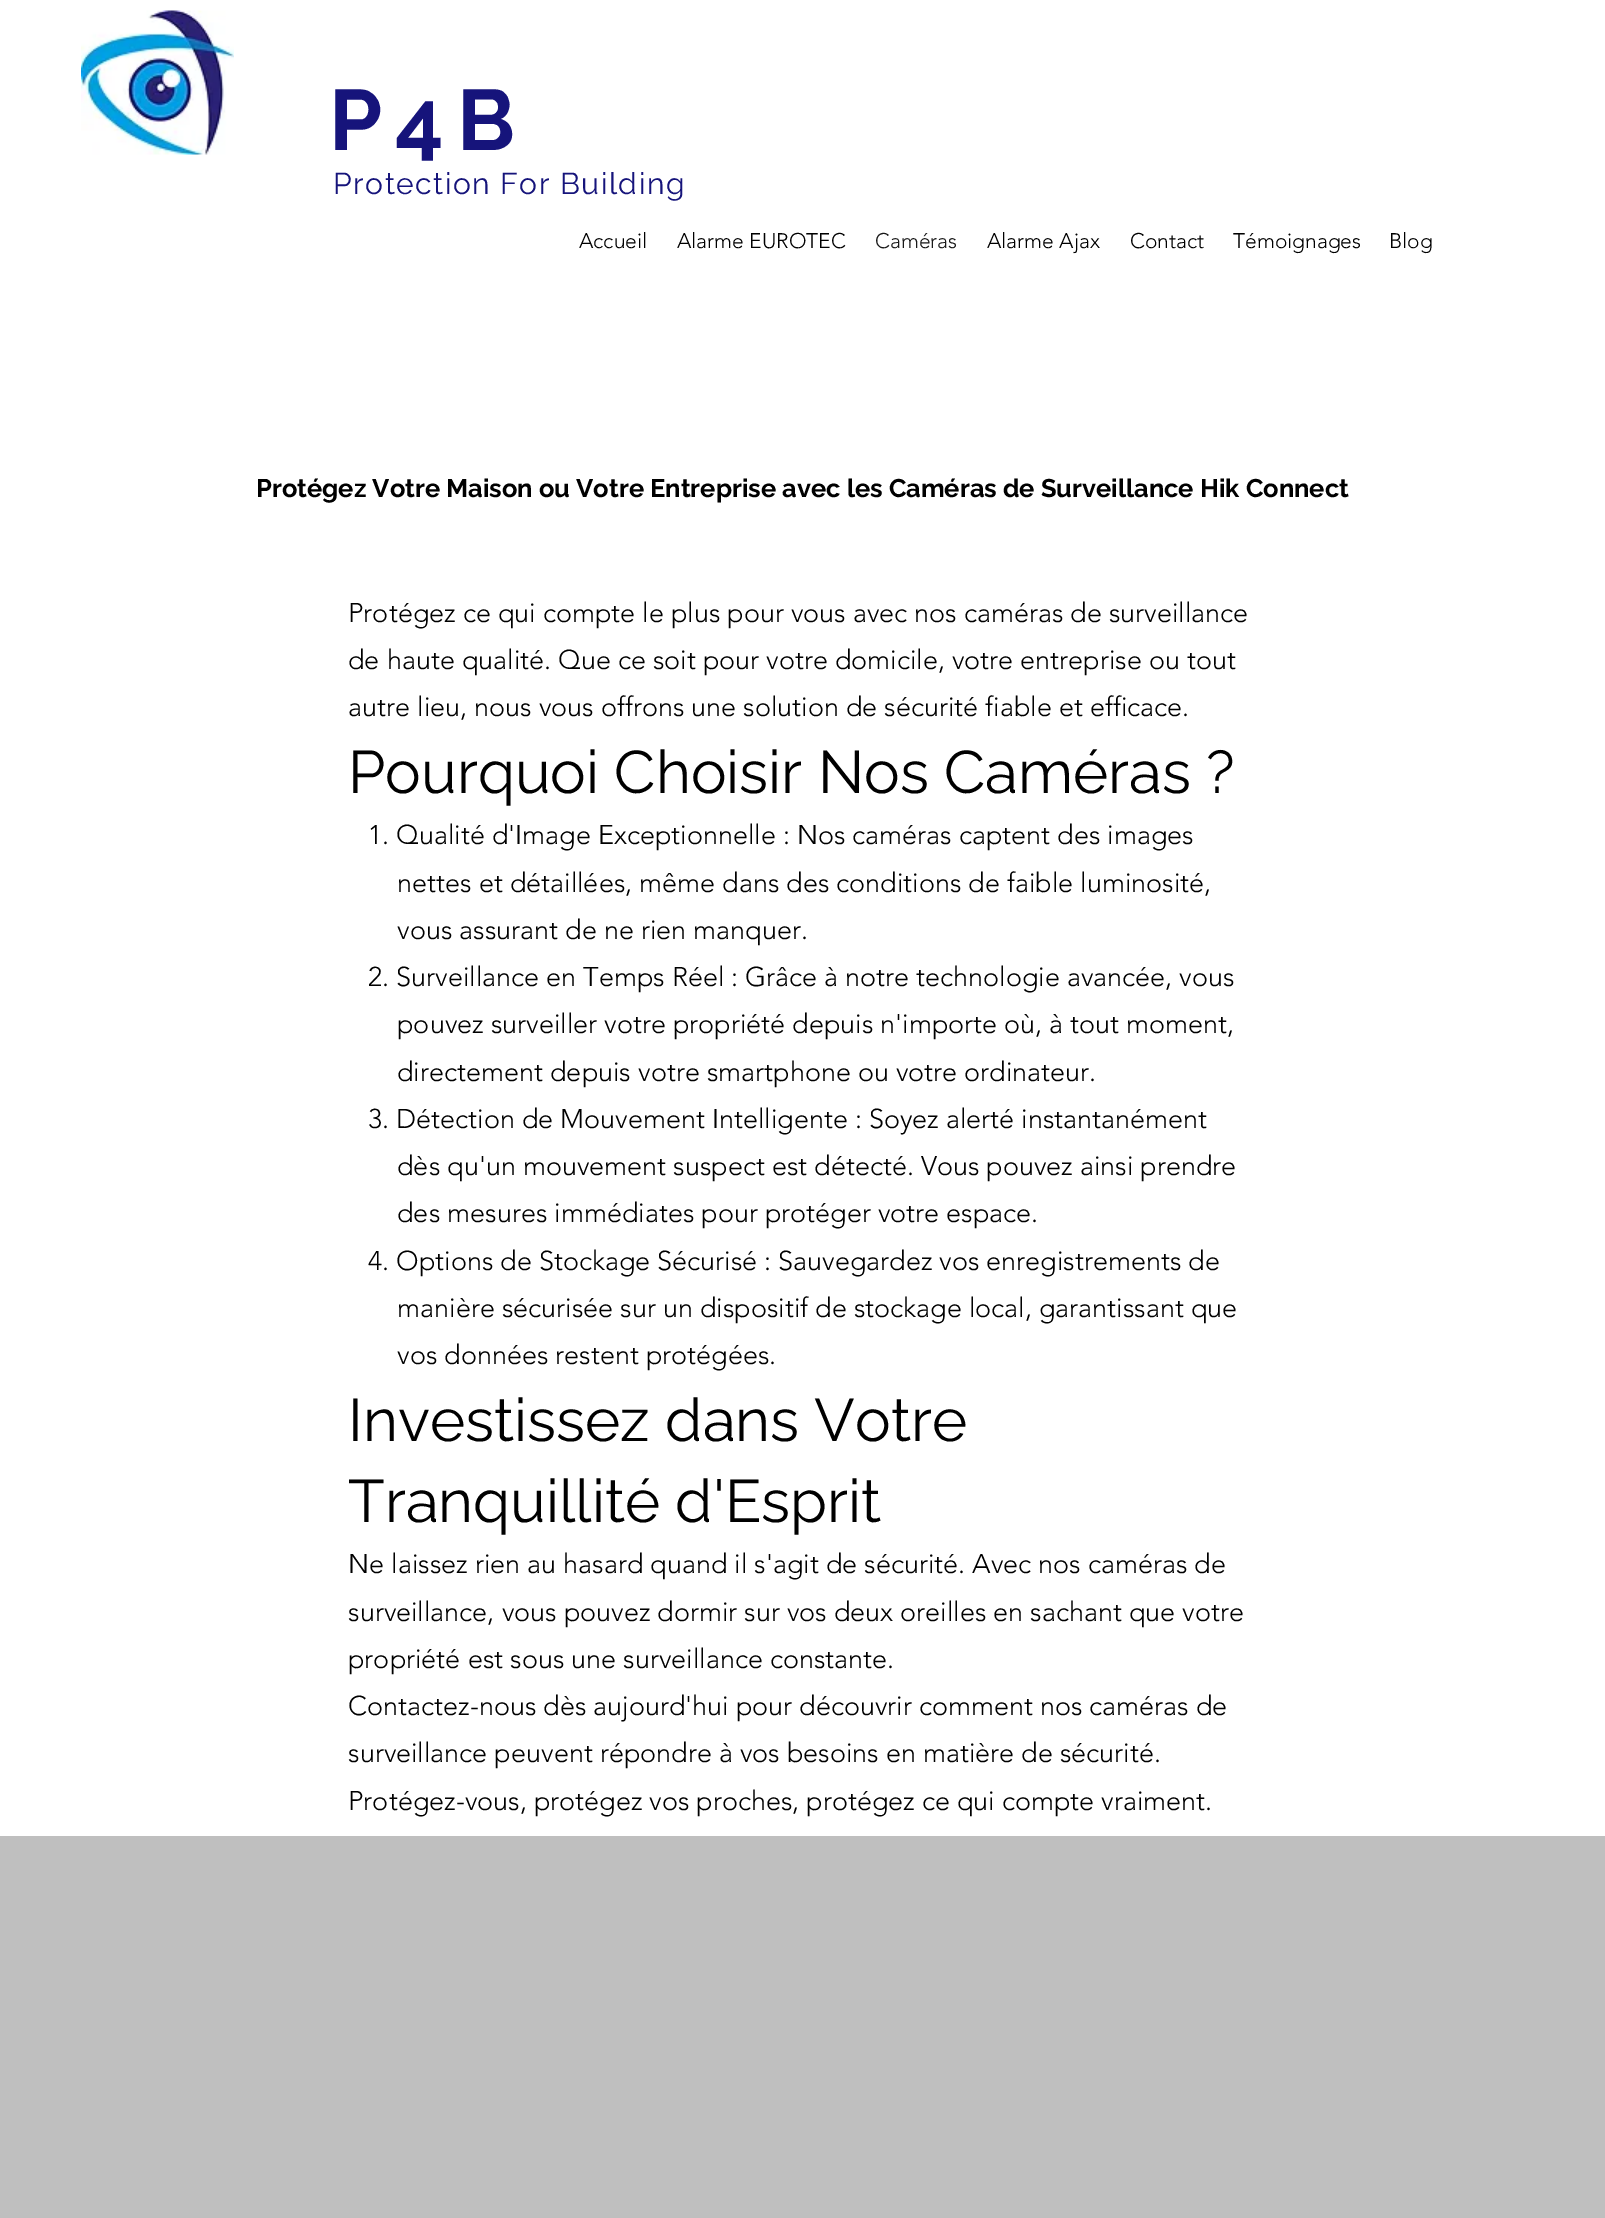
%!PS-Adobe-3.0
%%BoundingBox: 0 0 1605 2218
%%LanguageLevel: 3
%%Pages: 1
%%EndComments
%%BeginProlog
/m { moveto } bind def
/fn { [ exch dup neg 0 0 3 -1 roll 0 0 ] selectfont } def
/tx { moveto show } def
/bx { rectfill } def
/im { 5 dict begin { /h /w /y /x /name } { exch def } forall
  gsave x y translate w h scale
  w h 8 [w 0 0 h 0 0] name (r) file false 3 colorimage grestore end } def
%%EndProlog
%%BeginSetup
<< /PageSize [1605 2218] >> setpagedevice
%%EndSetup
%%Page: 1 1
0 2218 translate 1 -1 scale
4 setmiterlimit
1 setgray
0 0 1605 2218 bx
(image0.raw) 81 10 153 145 im
/Raleway-Bold 85.5 fn
0.086 0.078 0.482 setrgbcolor
329 150 m 13 0 (P4B) ashow
/Raleway-Regular 30 fn
333 194 m 1.5 0 (Protection For Building) ashow
/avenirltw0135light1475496-Light 21 fn
0 setgray
(Accueil) 579 248 tx
(Alarme EUROTEC) 677 248 tx
0.098 setgray
(Caméras) 875 248 tx
0 setgray
(Alarme Ajax) 987 248 tx
(Contact) 1130 248 tx
(Témoignages) 1233 248 tx
(Blog) 1389 248 tx
/Raleway-Bold 25.5 fn
(Protégez Votre Maison ou Votre Entreprise avec les Caméras de Surveillance Hik Connect) 256 497 tx
/avenirltw0135light1475496-Light 27 fn
(Protégez ce qui compte le plus pour vous avec nos caméras de surveillance) 348 622 tx
(de haute qualité. Que ce soit pour votre domicile, votre entreprise ou tout) 348 669 tx
(autre lieu, nous vous offrons une solution de sécurité fiable et efficace.) 348 716 tx
/Raleway-Regular 60 fn
(Pourquoi Choisir Nos Caméras ?) 348 793 tx
/avenirltw0135light1475496-Light 27 fn
(1. Qualité d'Image Exceptionnelle : Nos caméras captent des images) 368 844 tx
(nettes et détaillées, même dans des conditions de faible luminosité,) 397 892 tx
(vous assurant de ne rien manquer.) 397 939 tx
(2. Surveillance en Temps Réel : Grâce à notre technologie avancée, vous) 368 986 tx
(pouvez surveiller votre propriété depuis n'importe où, à tout moment,) 397 1033 tx
(directement depuis votre smartphone ou votre ordinateur.) 397 1081 tx
(3. Détection de Mouvement Intelligente : Soyez alerté instantanément) 368 1128 tx
(dès qu'un mouvement suspect est détecté. Vous pouvez ainsi prendre) 397 1175 tx
(des mesures immédiates pour protéger votre espace.) 397 1222 tx
(4. Options de Stockage Sécurisé : Sauvegardez vos enregistrements de) 368 1270 tx
(manière sécurisée sur un dispositif de stockage local, garantissant que) 397 1317 tx
(vos données restent protégées.) 397 1364 tx
/Raleway-Regular 60 fn
(Investissez dans Votre) 348 1441 tx
(Tranquillité d'Esprit) 348 1522 tx
/avenirltw0135light1475496-Light 27 fn
(Ne laissez rien au hasard quand il s'agit de sécurité. Avec nos caméras de) 348 1573 tx
(surveillance, vous pouvez dormir sur vos deux oreilles en sachant que votre) 348 1621 tx
(propriété est sous une surveillance constante.) 348 1668 tx
(Contactez-nous dès aujourd'hui pour découvrir comment nos caméras de) 348 1715 tx
(surveillance peuvent répondre à vos besoins en matière de sécurité.) 348 1762 tx
(Protégez-vous, protégez vos proches, protégez ce qui compte vraiment.) 348 1810 tx
0.749 setgray
0 1836 1605 382 bx
showpage
%%EOF
